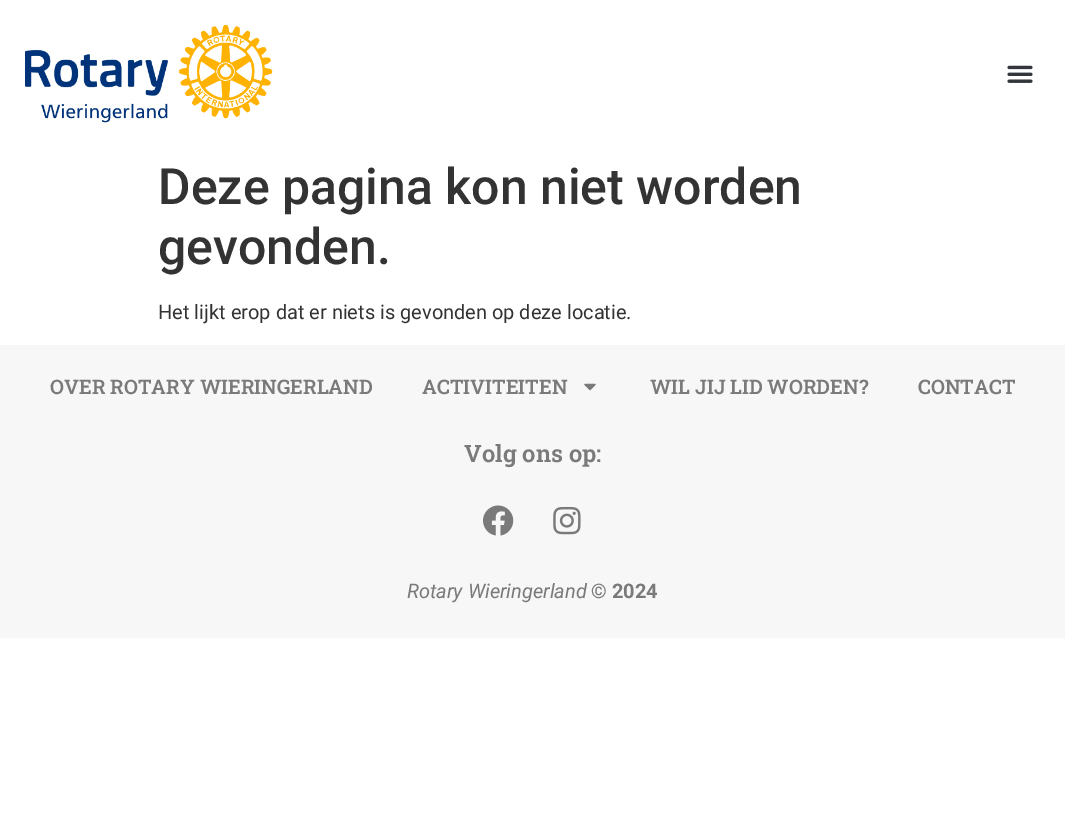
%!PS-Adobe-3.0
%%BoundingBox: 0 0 1065 840
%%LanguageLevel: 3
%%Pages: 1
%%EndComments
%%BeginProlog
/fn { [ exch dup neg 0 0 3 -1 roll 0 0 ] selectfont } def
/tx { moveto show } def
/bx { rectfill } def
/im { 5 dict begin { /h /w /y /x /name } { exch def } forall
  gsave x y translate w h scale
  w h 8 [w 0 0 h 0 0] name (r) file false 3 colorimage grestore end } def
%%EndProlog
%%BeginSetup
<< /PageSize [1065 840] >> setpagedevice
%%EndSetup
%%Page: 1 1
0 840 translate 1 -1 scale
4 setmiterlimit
1 setgray
0 0 1065 840 bx
(image0.raw) 25 25 248 98 im
(image1.raw) 1007 65 26 18 im
/Roboto-Medium 50 fn
0.2 setgray
(Deze pagina kon niet worden) 158 204 tx
(gevonden.) 158 264 tx
/Roboto-Regular 20 fn
(Het lijkt erop dat er niets is gevonden op deze locatie.) 158 319 tx
0.969 setgray
0 345 1065 293 bx
/RobotoSlab-SemiBold 20 fn
0.478 setgray
(OVER ROTARY WIERINGERLAND) 50 394 tx
(ACTIVITEITEN) 422 394 tx
(image2.raw) 584 383 12 8 im
(WIL JIJ LID WORDEN?) 650 394 tx
(CONTACT) 918 394 tx
/RobotoSlab-SemiBold 23.75 fn
(Volg ons op:) 464 462 tx
(image3.raw) 483 505 31 31 im
(image4.raw) 553 506 28 29 im
/Roboto-Italic 20 fn
(Rotary Wieringerland) 407 598 tx
/Roboto-Bold 20 fn
(© 2024) 591 598 tx
showpage
%%EOF
